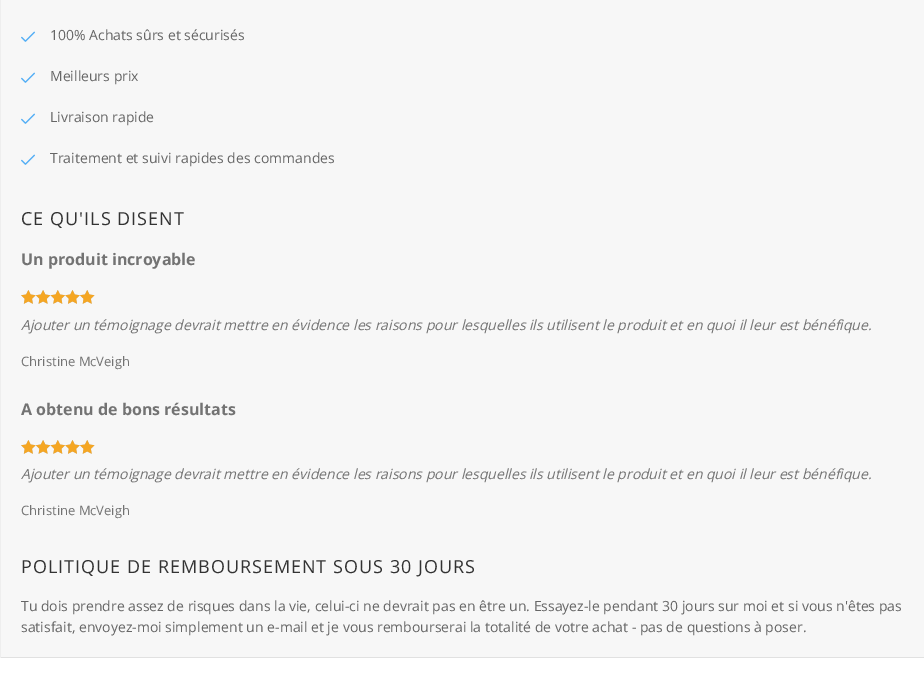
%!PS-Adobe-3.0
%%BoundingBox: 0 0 924 686
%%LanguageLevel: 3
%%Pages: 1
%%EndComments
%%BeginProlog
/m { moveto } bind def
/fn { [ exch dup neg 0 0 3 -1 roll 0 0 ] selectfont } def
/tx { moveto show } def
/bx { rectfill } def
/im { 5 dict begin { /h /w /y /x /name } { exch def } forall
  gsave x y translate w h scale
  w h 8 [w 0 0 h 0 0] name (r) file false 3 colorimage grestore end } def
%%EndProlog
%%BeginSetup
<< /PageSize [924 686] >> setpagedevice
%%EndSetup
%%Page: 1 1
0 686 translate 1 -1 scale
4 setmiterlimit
1 setgray
0 0 924 686 bx
0.969 setgray
1 0 923 657 bx
0.882 setgray
0 657 924 1 bx
0.933 setgray
0 0 1 658 bx
(image0.raw) 21 31 14 11 im
/OpenSans-Regular 14 fn
0.4 setgray
(100% Achats sûrs et sécurisés) 50 40 tx
(image0.raw) 21 72 14 11 im
(Meilleurs prix) 50 81 tx
(image0.raw) 21 113 14 11 im
(Livraison rapide) 50 122 tx
(image0.raw) 21 154 14 11 im
(Traitement et suivi rapides des commandes) 50 163 tx
/OpenSans-Regular 18 fn
0.2 setgray
21 225 m 1 0 (CE QU'ILS DISENT) ashow
/OpenSans-Bold 16 fn
0.451 setgray
(Un produit incroyable) 21 265 tx
(image1.raw) 21 290 74 14 im
(image2.raw) 21 290 74 14 im
/OpenSans-Italic 14 fn
(Ajouter un témoignage devrait mettre en évidence les raisons pour lesquelles ils utilisent le produit et en quoi il leur est bénéfique.) 21 330 tx
/OpenSans-Regular 13 fn
(Christine McVeigh) 21 366 tx
/OpenSans-Bold 16 fn
(A obtenu de bons résultats) 21 415 tx
(image1.raw) 21 440 74 14 im
(image2.raw) 21 440 74 14 im
/OpenSans-Italic 14 fn
(Ajouter un témoignage devrait mettre en évidence les raisons pour lesquelles ils utilisent le produit et en quoi il leur est bénéfique.) 21 479 tx
/OpenSans-Regular 13 fn
(Christine McVeigh) 21 515 tx
/OpenSans-Regular 18 fn
0.2 setgray
21 573 m 1 0 (POLITIQUE DE REMBOURSEMENT SOUS 30 JOURS) ashow
/OpenSans-Regular 14 fn
0.4 setgray
(Tu dois prendre assez de risques dans la vie, celui-ci ne devrait pas en être un. Essayez-le pendant 30 jours sur moi et si vous n'êtes pas) 21 611 tx
(satisfait, envoyez-moi simplement un e-mail et je vous rembourserai la totalité de votre achat - pas de questions à poser.) 21 632 tx
showpage
%%EOF
